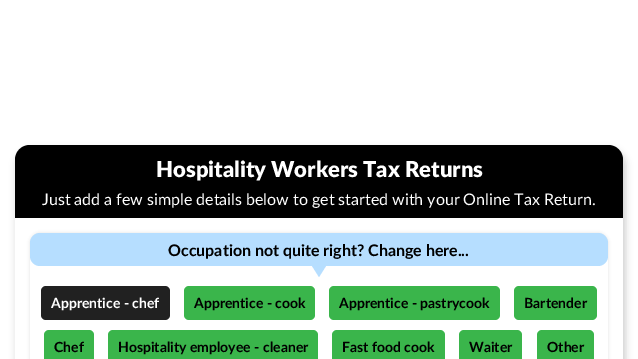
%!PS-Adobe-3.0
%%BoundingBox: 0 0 638 359
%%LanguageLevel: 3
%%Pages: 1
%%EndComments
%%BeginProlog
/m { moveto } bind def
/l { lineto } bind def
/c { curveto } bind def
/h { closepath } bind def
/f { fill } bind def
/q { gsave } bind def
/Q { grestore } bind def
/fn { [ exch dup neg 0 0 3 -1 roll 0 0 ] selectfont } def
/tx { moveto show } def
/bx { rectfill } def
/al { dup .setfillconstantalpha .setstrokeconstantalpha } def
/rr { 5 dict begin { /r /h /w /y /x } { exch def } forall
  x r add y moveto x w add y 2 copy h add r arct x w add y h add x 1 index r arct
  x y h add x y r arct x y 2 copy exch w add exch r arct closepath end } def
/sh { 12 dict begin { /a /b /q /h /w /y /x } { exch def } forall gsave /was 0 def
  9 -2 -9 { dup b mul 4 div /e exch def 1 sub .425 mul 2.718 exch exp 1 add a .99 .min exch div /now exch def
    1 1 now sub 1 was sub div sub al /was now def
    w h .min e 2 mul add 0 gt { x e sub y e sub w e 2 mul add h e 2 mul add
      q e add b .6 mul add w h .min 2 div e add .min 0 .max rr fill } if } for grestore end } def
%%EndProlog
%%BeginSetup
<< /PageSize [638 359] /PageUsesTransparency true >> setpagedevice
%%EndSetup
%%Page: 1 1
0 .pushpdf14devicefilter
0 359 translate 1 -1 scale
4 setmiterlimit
1 setgray
0 0 638 359 bx
q
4 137 m 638 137 l 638 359 l 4 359 l h 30 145 m 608 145 l 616.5 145 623 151.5 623 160 c 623 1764 l 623 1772.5 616.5 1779 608 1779 c 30 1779 l 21.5 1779 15 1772.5 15 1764 c 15 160 l 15 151.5 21.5 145 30 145 c h eoclip newpath
0 setgray
16 149 610 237 16 3.5 0.17 sh
Q
0 setgray
30 145 m 608 145 l 616.5 145 623 151.5 623 160 c 623 218 l 15 218 l 15 160 l 15 151.5 21.5 145 30 145 c h f
/Lato-Black 22 fn
1 setgray
(Hospitality Workers Tax Returns) 156 177 tx
/Lato-Regular 16 fn
(Just add a few simple details below to get started with your Online Tax Return.) 42 205 tx
q
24 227 m 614 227 l 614 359 l 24 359 l h 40 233 m 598 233 l 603.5 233 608 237.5 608 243 c 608 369 l 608 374.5 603.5 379 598 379 c 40 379 l 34.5 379 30 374.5 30 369 c 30 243 l 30 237.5 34.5 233 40 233 c h eoclip newpath
0.8 setgray
31 234 576 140 9 2 1 sh
Q
0.714 0.871 1 setrgbcolor
30 233 578 33 10 rr f
/Lato-Bold 16 fn
0 setgray
(Occupation not quite right? Change here...) 168 256 tx
0.714 0.871 1 setrgbcolor
312 266 m 326 266 l 319 277 l h f
0.129 setgray
41 286 129 34 5 rr f
/Lato-Bold 14 fn
1 setgray
(Apprentice - chef) 51 308 tx
0.227 0.71 0.294 setrgbcolor
184 286 131 34 5 rr f
0 setgray
(Apprentice - cook) 194 308 tx
0.227 0.71 0.294 setrgbcolor
329 286 171 34 5 rr f
0 setgray
(Apprentice - pastrycook) 339 308 tx
0.227 0.71 0.294 setrgbcolor
514 286 83 34 5 rr f
0 setgray
(Bartender) 524 308 tx
0.227 0.71 0.294 setrgbcolor
44 330 50 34 5 rr f
0 setgray
(Chef) 54 352 tx
0.227 0.71 0.294 setrgbcolor
108 330 210 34 5 rr f
0 setgray
(Hospitality employee - cleaner) 118 352 tx
0.227 0.71 0.294 setrgbcolor
332 330 113 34 5 rr f
0 setgray
(Fast food cook) 342 352 tx
0.227 0.71 0.294 setrgbcolor
459 330 63 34 5 rr f
0 setgray
(Waiter) 469 352 tx
0.227 0.71 0.294 setrgbcolor
537 330 57 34 5 rr f
0 setgray
(Other) 547 352 tx
.poppdf14devicefilter showpage
%%EOF
